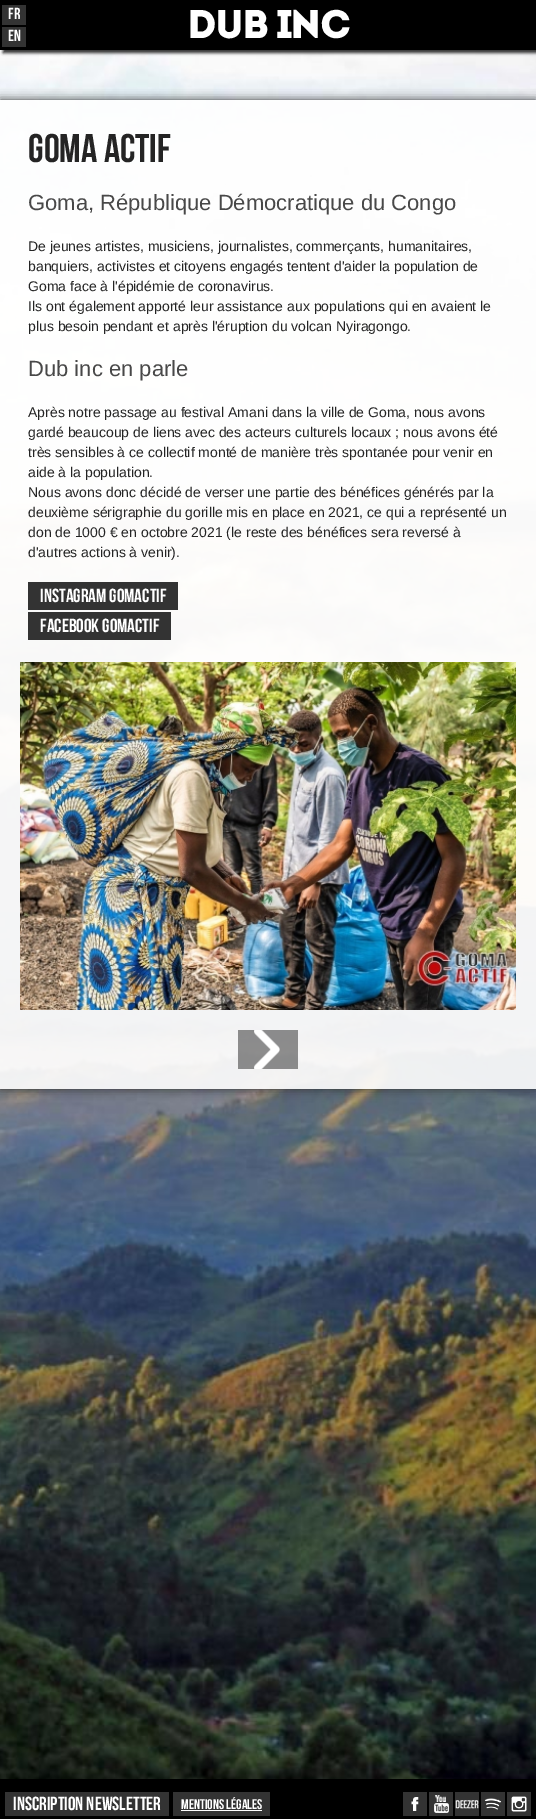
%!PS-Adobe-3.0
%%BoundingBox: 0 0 536 1819
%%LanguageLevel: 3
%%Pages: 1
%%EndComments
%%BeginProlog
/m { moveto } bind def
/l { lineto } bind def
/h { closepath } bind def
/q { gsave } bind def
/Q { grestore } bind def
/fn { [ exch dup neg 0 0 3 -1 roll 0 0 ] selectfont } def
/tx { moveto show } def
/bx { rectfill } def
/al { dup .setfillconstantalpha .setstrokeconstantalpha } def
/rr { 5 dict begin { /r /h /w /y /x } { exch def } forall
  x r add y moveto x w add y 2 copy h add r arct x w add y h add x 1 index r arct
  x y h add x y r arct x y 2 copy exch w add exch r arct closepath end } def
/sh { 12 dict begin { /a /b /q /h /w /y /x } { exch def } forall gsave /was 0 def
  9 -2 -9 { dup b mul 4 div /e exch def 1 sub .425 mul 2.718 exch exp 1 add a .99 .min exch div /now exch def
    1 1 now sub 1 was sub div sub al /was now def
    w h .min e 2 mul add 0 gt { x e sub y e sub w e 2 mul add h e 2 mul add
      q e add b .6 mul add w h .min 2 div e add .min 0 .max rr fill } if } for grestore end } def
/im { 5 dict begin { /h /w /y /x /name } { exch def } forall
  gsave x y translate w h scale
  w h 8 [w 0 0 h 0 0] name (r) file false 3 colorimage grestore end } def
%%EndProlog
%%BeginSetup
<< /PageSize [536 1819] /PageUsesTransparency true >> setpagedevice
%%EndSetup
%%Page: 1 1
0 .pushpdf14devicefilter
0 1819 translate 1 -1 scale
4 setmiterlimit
1 setgray
0 0 536 1819 bx
(image0.raw) 0 50 536 1729 im
0.2 setgray
3 3 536 50 0 1.5 1 sh
0 setgray
0 0 536 50 bx
0.2 setgray
2 5 24 20 bx
/BebasNeue-Regular 16 fn
1 setgray
(Fr) 8 19 tx
0.2 setgray
2 27 24 20 bx
1 setgray
(En) 8 41 tx
/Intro-Regular 40 fn
187 38 m -2 0 (Dub Inc) ashow
q
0 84 m 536 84 l 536 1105 l 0 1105 l h 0 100 m 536 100 l 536 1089 l 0 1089 l h eoclip newpath
0.2 setgray
0 100 536 989 0 5 1 sh
Q
0.9 al
0 100 536 989 bx
/BebasNeue-Regular 40 fn
1 al
0.141 setgray
(GOMA ACTIF) 28 162 tx
/LiberationSans-Regular 22 fn
0.282 setgray
(Goma, République Démocratique du Congo) 28 210 tx
/LiberationSans-Regular 14 fn
0.141 setgray
(De jeunes artistes, musiciens, journalistes, commerçants, humanitaires,) 28 251 tx
(banquiers, activistes et citoyens engagés tentent d'aider la population de) 28 271 tx
(Goma face à l'épidémie de coronavirus.) 28 291 tx
(Ils ont également apporté leur assistance aux populations qui en avaient le) 28 311 tx
(plus besoin pendant et après l'éruption du volcan Nyiragongo.) 28 331 tx
/LiberationSans-Regular 22 fn
0.282 setgray
(Dub inc en parle) 28 376 tx
/LiberationSans-Regular 14 fn
0.141 setgray
(Après notre passage au festival Amani dans la ville de Goma, nous avons) 28 417 tx
(gardé beaucoup de liens avec des acteurs culturels locaux ; nous avons été) 28 437 tx
(très sensibles à ce collectif monté de manière très spontanée pour venir en) 28 457 tx
(aide à la population.) 28 477 tx
(Nous avons donc décidé de verser une partie des bénéfices générés par la) 28 497 tx
(deuxième sérigraphie du gorille mis en place en 2021, ce qui a représenté un) 28 517 tx
(don de 1000 € en octobre 2021 \(le reste des bénéfices sera reversé à) 28 537 tx
(d'autres actions à venir\).) 28 557 tx
0.2 setgray
28 582 150 28 bx
/BebasNeue-Regular 19 fn
1 setgray
(INSTAGRAM GOMACTIF) 40 602 tx
0.2 setgray
28 612 143 28 bx
1 setgray
(FACEBOOK GOMACTIF) 40 632 tx
(image1.raw) 20 662 496 348 im
(image2.raw) 238 1030 60 39 im
0 setgray
0 1779 536 40 bx
0.2 setgray
5 1792 164 24 bx
1 setgray
(INSCRIPTION NEWSLETTER) 13 1810 tx
0.2 setgray
173 1792 97 24 bx
/BebasNeue-Regular 14 fn
1 setgray
(Mentions légales) 181 1809 tx
181 1810 81 1 bx
0.2 setgray
403 1792 24 24 bx
(image3.raw) 411 1797 8 14 im
429 1792 24 24 bx
(image4.raw) 434 1795 15 18 im
455 1792 24 24 bx
(image5.raw) 455 1800 24 9 im
481 1792 24 24 bx
(image6.raw) 484 1798 18 12 im
507 1792 24 24 bx
(image7.raw) 511 1796 16 16 im
.poppdf14devicefilter showpage
%%EOF
